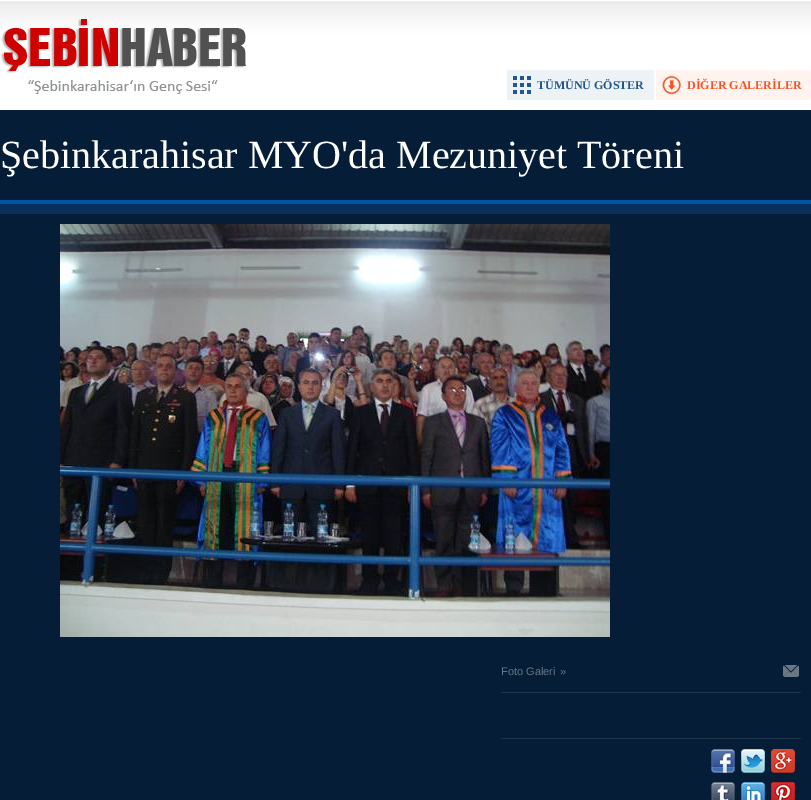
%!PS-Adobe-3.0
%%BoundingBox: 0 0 811 800
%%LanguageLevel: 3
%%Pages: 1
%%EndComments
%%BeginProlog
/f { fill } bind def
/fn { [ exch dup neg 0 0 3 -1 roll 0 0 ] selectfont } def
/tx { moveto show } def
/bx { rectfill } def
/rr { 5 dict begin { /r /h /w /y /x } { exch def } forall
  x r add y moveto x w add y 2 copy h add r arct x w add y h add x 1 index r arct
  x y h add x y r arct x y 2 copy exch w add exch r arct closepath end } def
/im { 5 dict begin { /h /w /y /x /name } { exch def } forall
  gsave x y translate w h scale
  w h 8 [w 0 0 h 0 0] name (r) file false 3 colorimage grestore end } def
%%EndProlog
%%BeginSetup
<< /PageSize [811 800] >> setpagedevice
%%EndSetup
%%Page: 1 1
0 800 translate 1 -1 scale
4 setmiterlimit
0.031 0.188 0.353 setrgbcolor
0 0 811 800 bx
(image0.raw) 0 0 811 200 im
(image1.raw) 1 19 245 75 im
0.929 0.949 0.969 setrgbcolor
507 70 147 30 2 rr f
(image2.raw) 513 76 18 18 im
/LiberationSerif-Bold 12 fn
0.129 0.337 0.557 setrgbcolor
(TÜMÜNÜ GÖSTER) 537 89 tx
1 0.953 0.937 setrgbcolor
656 70 155 30 2 rr f
(image3.raw) 662 75 19 20 im
0.992 0.31 0.125 setrgbcolor
(DİĞER GALERİLER) 687 89 tx
0 0.322 0.659 setrgbcolor
0 200 811 4 bx
/LiberationSerif-Regular 40 fn
1 setgray
(Şebinkarahisar MYO'da Mezuniyet Töreni) 0 168 tx
0.02 0.114 0.212 setrgbcolor
0 214 811 586 bx
(image4.raw) 60 224 550 413 im
/LiberationSans-Regular 11 fn
0.412 0.467 0.525 setrgbcolor
(Foto Galeri) 501 675 tx
(») 560 675 tx
(image5.raw) 783 665 16 13 im
0.118 0.204 0.29 setrgbcolor
501 692 300 1 bx
501 738 300 1 bx
(image6.raw) 711 749 24 24 im
(image7.raw) 741 749 24 24 im
(image8.raw) 771 749 24 24 im
(image9.raw) 711 782 24 18 im
(image10.raw) 741 782 24 18 im
(image11.raw) 771 782 24 18 im
showpage
%%EOF
